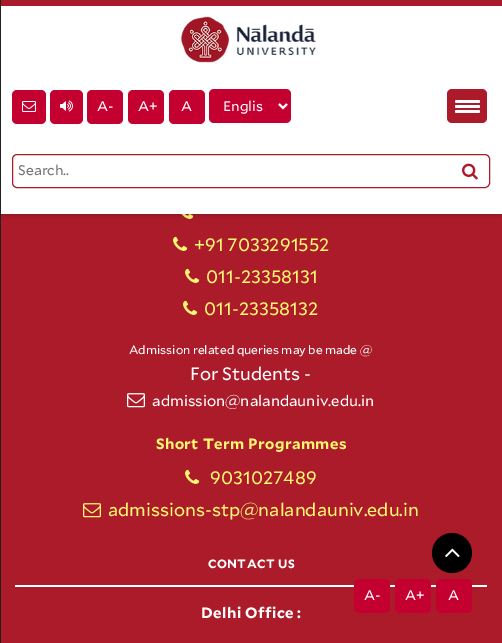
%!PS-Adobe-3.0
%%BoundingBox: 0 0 502 643
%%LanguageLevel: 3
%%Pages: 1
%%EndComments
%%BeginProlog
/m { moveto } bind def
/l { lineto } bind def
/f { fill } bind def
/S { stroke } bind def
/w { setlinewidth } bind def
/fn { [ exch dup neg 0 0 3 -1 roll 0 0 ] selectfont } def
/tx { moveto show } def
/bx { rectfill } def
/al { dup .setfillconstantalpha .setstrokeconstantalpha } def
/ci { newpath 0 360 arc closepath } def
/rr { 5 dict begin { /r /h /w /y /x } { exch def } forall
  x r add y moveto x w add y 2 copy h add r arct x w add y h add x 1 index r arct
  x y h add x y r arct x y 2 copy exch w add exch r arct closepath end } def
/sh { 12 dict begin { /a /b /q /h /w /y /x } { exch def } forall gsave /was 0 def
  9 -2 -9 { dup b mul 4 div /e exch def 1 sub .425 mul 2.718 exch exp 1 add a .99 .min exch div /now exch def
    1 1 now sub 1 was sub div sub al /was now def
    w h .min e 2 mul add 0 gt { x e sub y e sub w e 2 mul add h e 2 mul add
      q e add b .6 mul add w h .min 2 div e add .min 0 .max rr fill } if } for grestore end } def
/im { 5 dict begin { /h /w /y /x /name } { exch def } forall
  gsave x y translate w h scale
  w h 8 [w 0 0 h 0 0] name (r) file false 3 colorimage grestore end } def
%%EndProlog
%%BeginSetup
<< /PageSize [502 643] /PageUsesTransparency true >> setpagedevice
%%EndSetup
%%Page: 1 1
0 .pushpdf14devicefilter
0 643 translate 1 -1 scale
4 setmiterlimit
0.675 0.106 0.165 setrgbcolor
0 0 502 643 bx
(image4.raw) 181 214 13 5 im
0 setgray
1 1 500 212 0 3.5 0.4 sh
0.663 0.102 0.173 setrgbcolor
0 0 502 6 bx
0.129 setgray
0 0 1 643 bx
1 setgray
1 6 501 208 bx
0.675 0.106 0.165 setrgbcolor
447 89 40 34 5 rr f
1 setgray
455 105 25 3 1.5 rr f
455 100 25 3 1.5 rr f
455 110 25 3 1.5 rr f
(image0.raw) 181 16 135 47 im
0.769 0 0.188 setrgbcolor
12 90 34 34 5 rr f
(image1.raw) 22 101 14 11 im
50 90 33 34 5 rr f
(image2.raw) 60 100 13 12 im
87 90 36 34 5 rr f
/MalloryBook-Regular 14 fn
1 setgray
(A-) 97 111 tx
0.769 0 0.188 setrgbcolor
128 90 36 34 5 rr f
1 setgray
(A+) 138 111 tx
0.769 0 0.188 setrgbcolor
169 90 36 34 5 rr f
1 setgray
(A) 181 111 tx
0.769 0 0.188 setrgbcolor
209 89 82 34 5 rr f
1 setgray
2 w
279 104 m 283 108 l 287 104 l S
(Englis) 223 111 tx
0.675 0.106 0.165 setrgbcolor
1 w
12.5 154.5 477 33 4.5 rr S
0.459 setgray
(Search..) 18 175 tx
(image3.raw) 462 163 16 17 im
(image5.raw) 173 236 15 15 im
/MalloryBook-Regular 18 fn
1 0.969 0.447 setrgbcolor
(+91 7033291552) 194 251 tx
(image5.raw) 185 268 15 15 im
(011-23358131) 206 283 tx
(image5.raw) 183 300 15 15 im
(011-23358132) 204 315 tx
/MalloryBook-Regular 12 fn
1 setgray
(Admission related queries may be made @) 129 354 tx
/MalloryBook-Regular 18 fn
(For Students -) 190 380 tx
(image6.raw) 127 393 18 15 im
/MalloryBook-Regular 15 fn
(admission@nalandauniv.edu.in) 152 406 tx
/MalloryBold-Bold 15 fn
1 0.969 0.447 setrgbcolor
156 449 m 0.4 0 (Short Term Programmes) ashow
(image5.raw) 185 469 15 15 im
/MalloryBook-Regular 18 fn
(9031027489) 210 484 tx
(image7.raw) 83 503 18 15 im
(admissions-stp@nalandauniv.edu.in) 108 516 tx
/MalloryBold-Bold 12 fn
1 setgray
208 568 m 0.4 0 (CONTACT US) ashow
15 585 472 2 bx
/MalloryBold-Bold 15 fn
201 618 m 0.4 0 (Delhi Office :) ashow
0 setgray
452 553 20 ci f
(image8.raw) 445 548 15 9 im
0.769 0 0.188 setrgbcolor
354 579 36 34 5 rr f
/MalloryBook-Regular 14 fn
1 setgray
(A-) 364 600 tx
0.769 0 0.188 setrgbcolor
395 579 36 34 5 rr f
1 setgray
(A+) 405 600 tx
0.769 0 0.188 setrgbcolor
436 579 36 34 5 rr f
1 setgray
(A) 448 600 tx
.poppdf14devicefilter showpage
%%EOF
